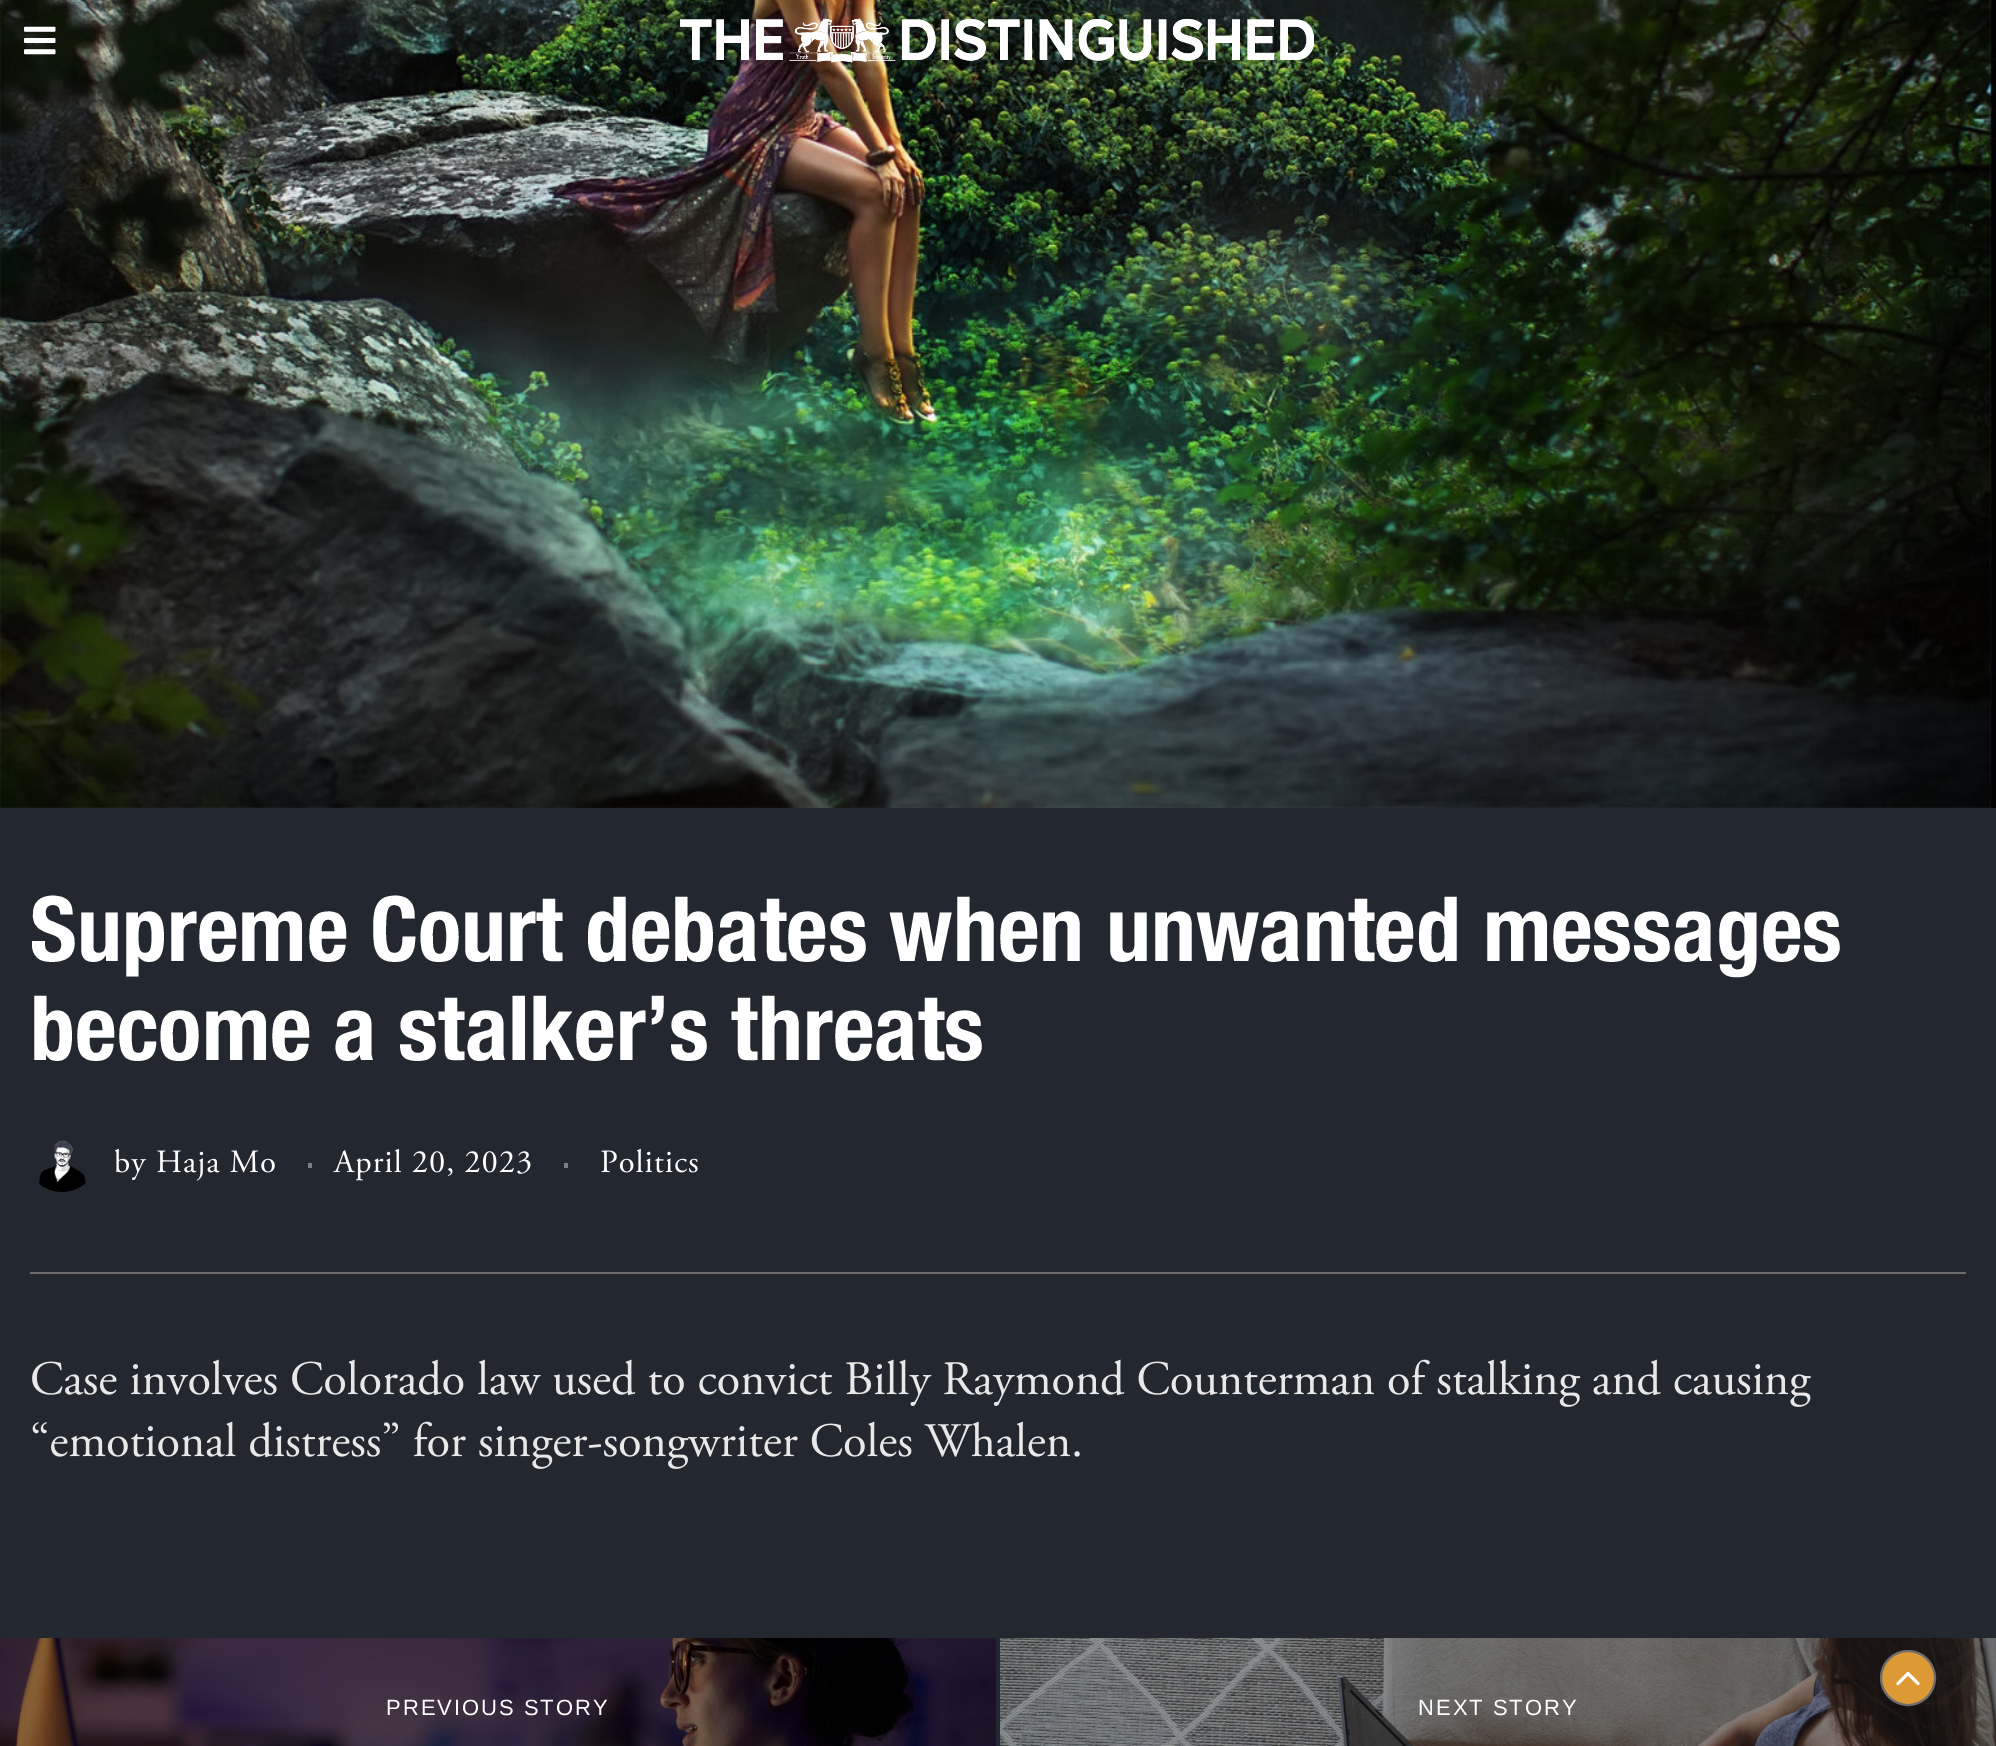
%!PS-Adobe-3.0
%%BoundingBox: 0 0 1996 1746
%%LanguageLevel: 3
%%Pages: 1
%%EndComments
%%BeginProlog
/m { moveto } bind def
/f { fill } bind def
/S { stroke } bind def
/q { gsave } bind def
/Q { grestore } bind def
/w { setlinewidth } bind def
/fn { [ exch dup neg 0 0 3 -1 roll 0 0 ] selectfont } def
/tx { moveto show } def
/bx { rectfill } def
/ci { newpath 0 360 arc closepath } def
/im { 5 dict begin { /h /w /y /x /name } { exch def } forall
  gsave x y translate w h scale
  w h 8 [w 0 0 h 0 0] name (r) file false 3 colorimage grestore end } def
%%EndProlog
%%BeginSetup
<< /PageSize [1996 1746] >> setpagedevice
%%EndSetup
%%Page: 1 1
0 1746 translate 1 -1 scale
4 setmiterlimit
0.137 0.153 0.184 setrgbcolor
0 0 1996 1746 bx
(image0.raw) 0 0 1996 808 im
/HelveticaNeue-Bold 90 fn
1 setgray
(Supreme Court debates when unwanted messages) 30 961 tx
(become a stalker’s threats) 30 1060 tx
(image1.raw) 24 26 32 29 im
(image2.raw) 680 18 634 45 im
0.427 setgray
30 1272 1936 2 bx
(image3.raw) 39 1140 47 52 im
(image4.raw) 115 1148 31 33 im
(image5.raw) 157 1150 118 31 im
0.482 0.49 0.51 setrgbcolor
308 1163 4 5 bx
(image6.raw) 333 1148 198 33 im
564 1163 4 5 bx
(image7.raw) 601 1148 97 25 im
(image8.raw) 32 1359 1779 48 im
(image9.raw) 32 1421 1048 48 im
(image10.raw) 0 1638 996 108 im
/LiberationSans-Regular 22 fn
1 setgray
386 1715 m 2 0 (PREVIOUS STORY) ashow
(image11.raw) 1000 1638 996 108 im
1418 1715 m 2 0 (NEXT STORY) ashow
0.867 0.6 0.2 setrgbcolor
1908 1678 27 ci q f Q
0.427 setgray
2 w
S
(image12.raw) 1896 1671 24 15 im
showpage
%%EOF
